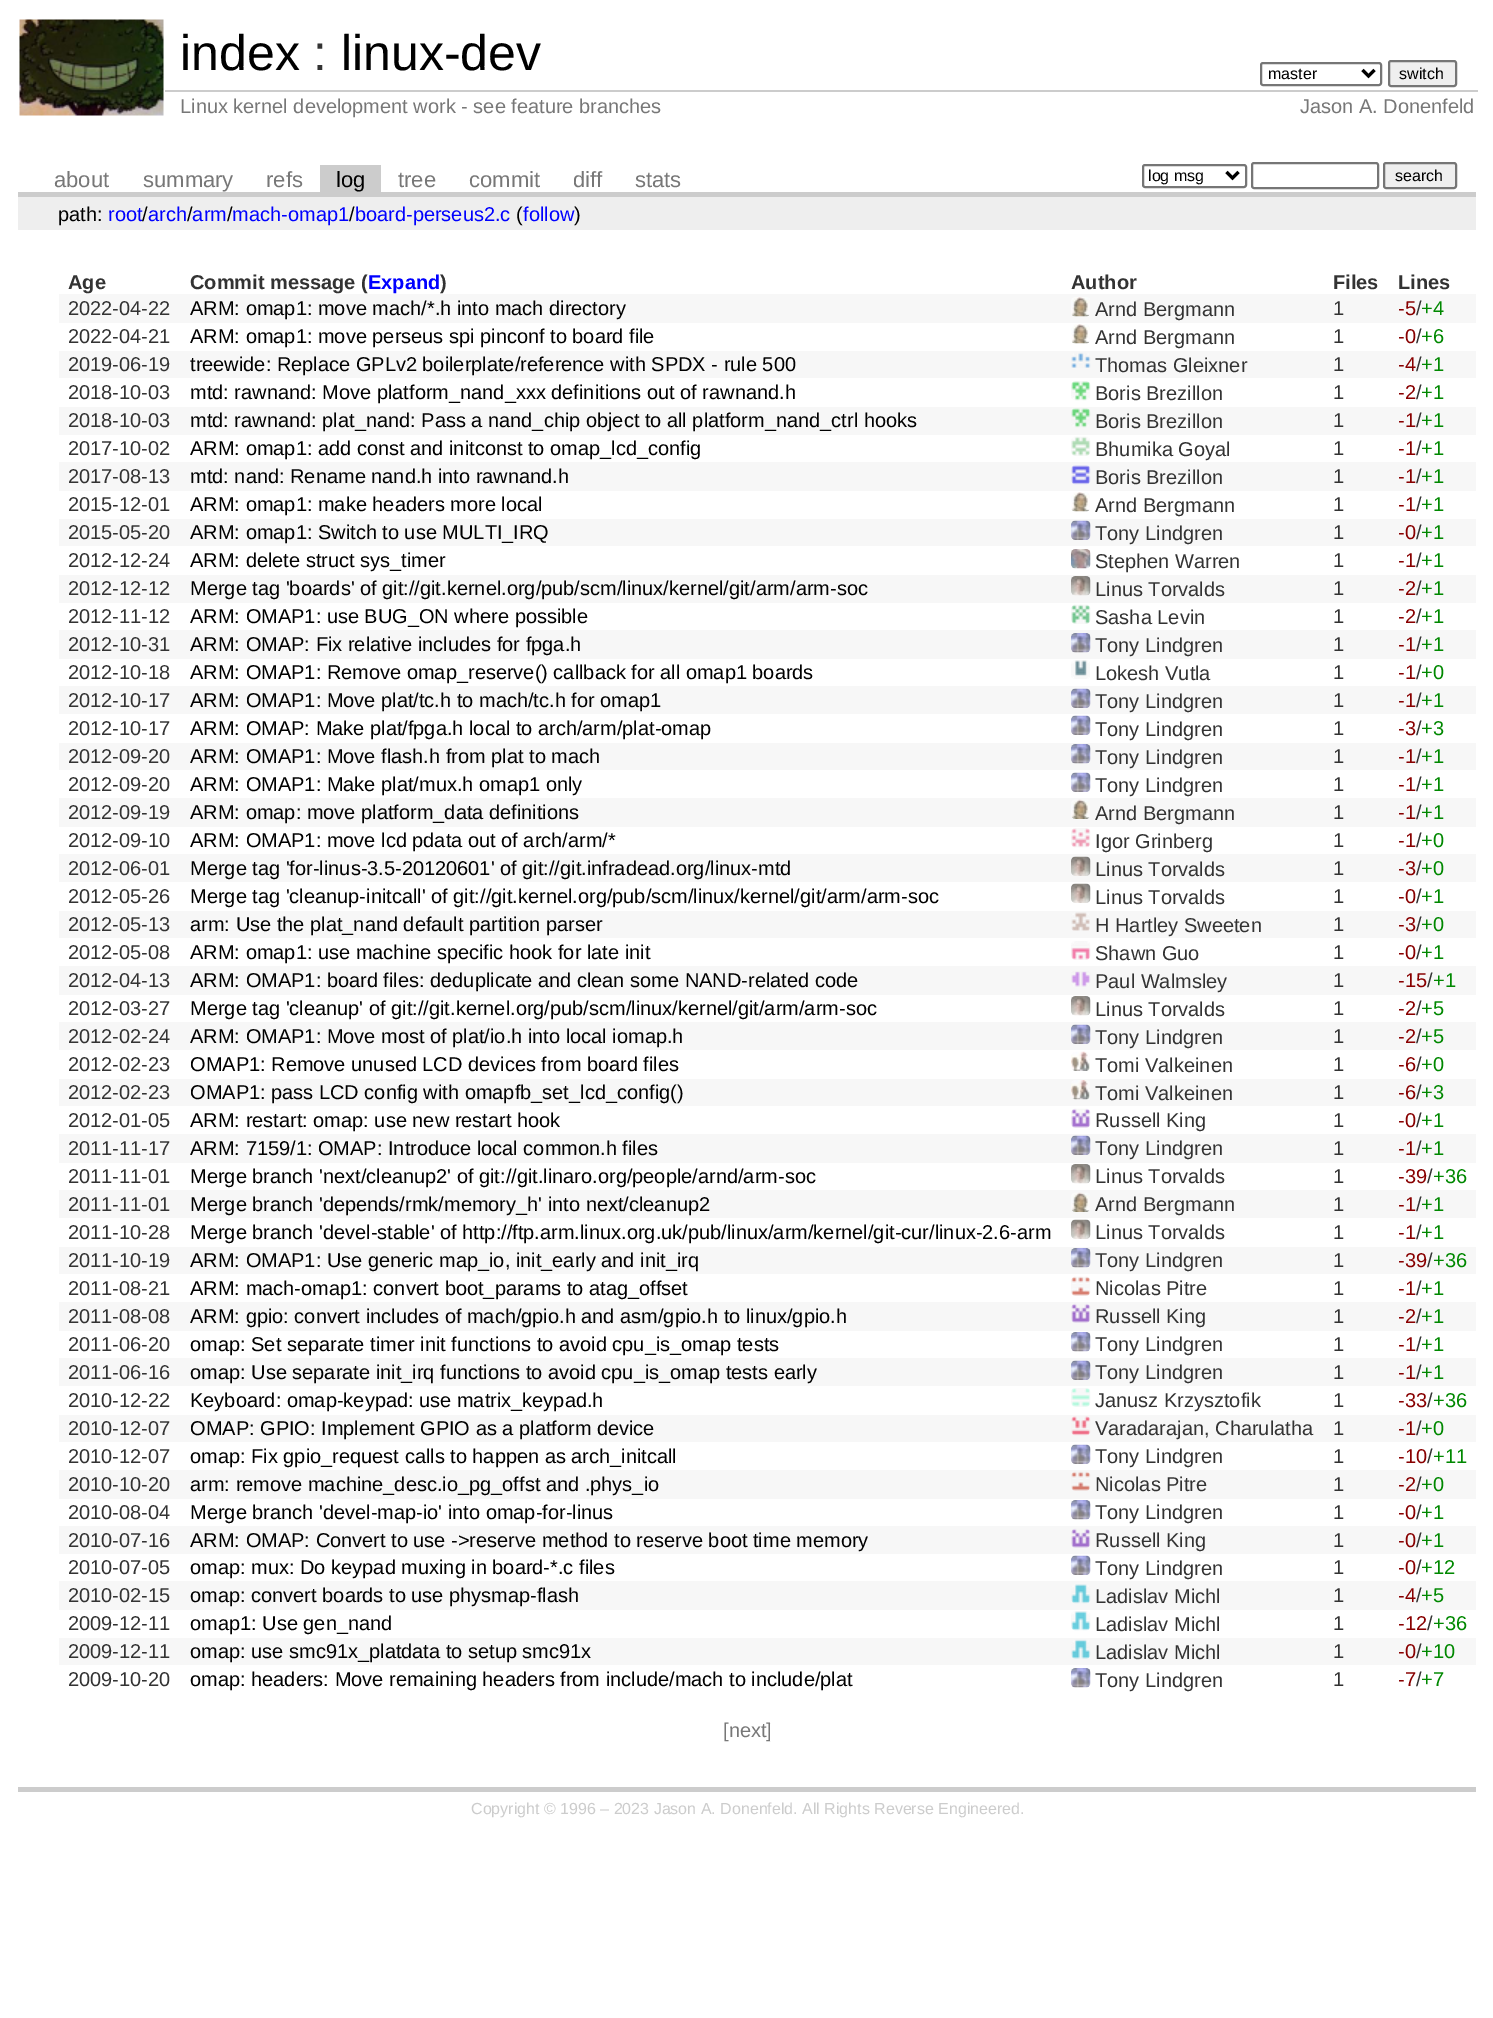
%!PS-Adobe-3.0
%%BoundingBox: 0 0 1493 2018
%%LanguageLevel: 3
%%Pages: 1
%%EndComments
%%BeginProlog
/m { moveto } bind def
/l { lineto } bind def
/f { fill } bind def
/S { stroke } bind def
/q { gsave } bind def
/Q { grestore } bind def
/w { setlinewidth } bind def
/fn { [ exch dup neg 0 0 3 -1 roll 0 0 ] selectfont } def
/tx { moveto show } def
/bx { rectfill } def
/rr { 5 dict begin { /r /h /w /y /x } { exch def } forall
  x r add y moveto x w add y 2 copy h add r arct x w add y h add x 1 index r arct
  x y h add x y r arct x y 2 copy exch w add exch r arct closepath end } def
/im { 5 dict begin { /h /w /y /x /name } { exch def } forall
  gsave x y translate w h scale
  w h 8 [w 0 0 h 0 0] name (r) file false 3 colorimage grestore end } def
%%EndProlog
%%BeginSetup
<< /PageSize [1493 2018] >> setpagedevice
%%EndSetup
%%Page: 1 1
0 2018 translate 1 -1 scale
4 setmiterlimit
1 setgray
0 0 1493 2018 bx
(image0.raw) 19 19 145 97 im
/LiberationSans-Regular 50 fn
0 setgray
(index) 180 70 tx
0.2 setgray
(:) 313 70 tx
0 setgray
(linux-dev) 341 70 tx
0.463 setgray
2 w
1261 63 120 22 2 rr S
0 setgray
3 w
1362.5 70 m 1368.5 76 l 1374.5 70 l S
/LiberationSans-Regular 16 fn
(master) 1268 79 tx
0.937 setgray
1389 61 67 25 2 rr q f Q
0.463 setgray
2 w
S
0 setgray
(switch) 1399 79 tx
/LiberationSans-Regular 20 fn
0.467 setgray
(Linux kernel development work - see feature branches) 180 113 tx
0.8 setgray
165 90 1313 2 bx
0.467 setgray
(Jason A. Donenfeld) 1300 113 tx
0.8 setgray
18 192 1458 5 bx
/LiberationSans-Regular 22 fn
0.467 setgray
(about) 54 187 tx
(summary) 143 187 tx
(refs) 266 187 tx
0.8 setgray
320 165 61 27 bx
0 setgray
(log) 336 187 tx
0.467 setgray
(tree) 398 187 tx
(commit) 469 187 tx
(diff) 573 187 tx
(stats) 635 187 tx
0.463 setgray
1143 165 103 22 2 rr S
0 setgray
3 w
1226.5 172 m 1232.5 178 l 1238.5 172 l S
/LiberationSans-Regular 16 fn
(log msg) 1148 181 tx
0.463 setgray
2 w
1252 163 126 25 2 rr S
0.937 setgray
1384 163 72 25 2 rr q f Q
0.463 setgray
S
0 setgray
(search) 1395 181 tx
0.933 setgray
18 197 1458 33 bx
/LiberationSans-Regular 20 fn
0 setgray
(path:) 58 221 tx
0 0 1 setrgbcolor
(root arch arm mach-omap1 board-perseus2.c) 108 221 tx
0 setgray
(/) 142 221 tx
(/) 187 221 tx
(/) 227 221 tx
(/) 349 221 tx
(\() 516 221 tx
0 0 1 setrgbcolor
(follow) 523 221 tx
0 setgray
(\)) 574 221 tx
0.8 setgray
18 1787 1458 5 bx
/LiberationSans-Bold 20 fn
0.2 setgray
(Age) 68 289 tx
(Commit message \() 190 289 tx
0 0 1 setrgbcolor
(Expand) 368 289 tx
0.2 setgray
(\)) 440 289 tx
(Author) 1071 289 tx
(Files) 1333 289 tx
(Lines) 1398 289 tx
0.969 setgray
59 294 1417 29 bx
/LiberationSans-Regular 20 fn
0.2 setgray
(2022-04-22) 68 315 tx
0 setgray
(ARM: omap1: move mach/*.h into mach directory) 190 315 tx
(image1.raw) 1071 297 19 20 im
0.2 setgray
(Arnd Bergmann) 1095 316 tx
(1) 1333 315 tx
0.533 0 0 setrgbcolor
(-5) 1398 315 tx
0.2 setgray
(/) 1416 315 tx
0 0.533 0 setrgbcolor
(+4) 1421 315 tx
0.2 setgray
(2022-04-21) 68 343 tx
0 setgray
(ARM: omap1: move perseus spi pinconf to board file) 190 343 tx
(image2.raw) 1071 324 19 20 im
0.2 setgray
(Arnd Bergmann) 1095 344 tx
(1) 1333 343 tx
0.533 0 0 setrgbcolor
(-0) 1398 343 tx
0.2 setgray
(/) 1416 343 tx
0 0.533 0 setrgbcolor
(+6) 1421 343 tx
0.969 setgray
59 351 1417 27 bx
0.2 setgray
(2019-06-19) 68 371 tx
0 setgray
(treewide: Replace GPLv2 boilerplate/reference with SPDX - rule 500) 190 371 tx
(image3.raw) 1071 352 20 16 im
0.2 setgray
(Thomas Gleixner) 1095 372 tx
(1) 1333 371 tx
0.533 0 0 setrgbcolor
(-4) 1398 371 tx
0.2 setgray
(/) 1416 371 tx
0 0.533 0 setrgbcolor
(+1) 1421 371 tx
0.2 setgray
(2018-10-03) 68 399 tx
0 setgray
(mtd: rawnand: Move platform_nand_xxx definitions out of rawnand.h) 190 399 tx
(image4.raw) 1071 381 20 20 im
0.2 setgray
(Boris Brezillon) 1095 400 tx
(1) 1333 399 tx
0.533 0 0 setrgbcolor
(-2) 1398 399 tx
0.2 setgray
(/) 1416 399 tx
0 0.533 0 setrgbcolor
(+1) 1421 399 tx
0.969 setgray
59 407 1417 28 bx
0.2 setgray
(2018-10-03) 68 427 tx
0 setgray
(mtd: rawnand: plat_nand: Pass a nand_chip object to all platform_nand_ctrl hooks) 190 427 tx
(image5.raw) 1071 408 20 20 im
0.2 setgray
(Boris Brezillon) 1095 428 tx
(1) 1333 427 tx
0.533 0 0 setrgbcolor
(-1) 1398 427 tx
0.2 setgray
(/) 1416 427 tx
0 0.533 0 setrgbcolor
(+1) 1421 427 tx
0.2 setgray
(2017-10-02) 68 455 tx
0 setgray
(ARM: omap1: add const and initconst to omap_lcd_config) 190 455 tx
(image6.raw) 1071 436 20 20 im
0.2 setgray
(Bhumika Goyal) 1095 456 tx
(1) 1333 455 tx
0.533 0 0 setrgbcolor
(-1) 1398 455 tx
0.2 setgray
(/) 1416 455 tx
0 0.533 0 setrgbcolor
(+1) 1421 455 tx
0.969 setgray
59 462 1417 29 bx
0.2 setgray
(2017-08-13) 68 483 tx
0 setgray
(mtd: nand: Rename nand.h into rawnand.h) 190 483 tx
(image7.raw) 1071 465 20 20 im
0.2 setgray
(Boris Brezillon) 1095 484 tx
(1) 1333 483 tx
0.533 0 0 setrgbcolor
(-1) 1398 483 tx
0.2 setgray
(/) 1416 483 tx
0 0.533 0 setrgbcolor
(+1) 1421 483 tx
0.2 setgray
(2015-12-01) 68 511 tx
0 setgray
(ARM: omap1: make headers more local) 190 511 tx
(image8.raw) 1071 492 19 20 im
0.2 setgray
(Arnd Bergmann) 1095 512 tx
(1) 1333 511 tx
0.533 0 0 setrgbcolor
(-1) 1398 511 tx
0.2 setgray
(/) 1416 511 tx
0 0.533 0 setrgbcolor
(+1) 1421 511 tx
0.969 setgray
59 519 1417 27 bx
0.2 setgray
(2015-05-20) 68 539 tx
0 setgray
(ARM: omap1: Switch to use MULTI_IRQ) 190 539 tx
(image9.raw) 1071 520 20 20 im
0.2 setgray
(Tony Lindgren) 1095 540 tx
(1) 1333 539 tx
0.533 0 0 setrgbcolor
(-0) 1398 539 tx
0.2 setgray
(/) 1416 539 tx
0 0.533 0 setrgbcolor
(+1) 1421 539 tx
0.2 setgray
(2012-12-24) 68 567 tx
0 setgray
(ARM: delete struct sys_timer) 190 567 tx
(image10.raw) 1071 549 20 20 im
0.2 setgray
(Stephen Warren) 1095 568 tx
(1) 1333 567 tx
0.533 0 0 setrgbcolor
(-1) 1398 567 tx
0.2 setgray
(/) 1416 567 tx
0 0.533 0 setrgbcolor
(+1) 1421 567 tx
0.969 setgray
59 575 1417 28 bx
0.2 setgray
(2012-12-12) 68 595 tx
0 setgray
(Merge tag 'boards' of git://git.kernel.org/pub/scm/linux/kernel/git/arm/arm-soc) 190 595 tx
(image11.raw) 1071 576 20 20 im
0.2 setgray
(Linus Torvalds) 1095 596 tx
(1) 1333 595 tx
0.533 0 0 setrgbcolor
(-2) 1398 595 tx
0.2 setgray
(/) 1416 595 tx
0 0.533 0 setrgbcolor
(+1) 1421 595 tx
0.2 setgray
(2012-11-12) 68 623 tx
0 setgray
(ARM: OMAP1: use BUG_ON where possible) 190 623 tx
(image12.raw) 1071 604 20 20 im
0.2 setgray
(Sasha Levin) 1095 624 tx
(1) 1333 623 tx
0.533 0 0 setrgbcolor
(-2) 1398 623 tx
0.2 setgray
(/) 1416 623 tx
0 0.533 0 setrgbcolor
(+1) 1421 623 tx
0.969 setgray
59 630 1417 29 bx
0.2 setgray
(2012-10-31) 68 651 tx
0 setgray
(ARM: OMAP: Fix relative includes for fpga.h) 190 651 tx
(image13.raw) 1071 633 20 20 im
0.2 setgray
(Tony Lindgren) 1095 652 tx
(1) 1333 651 tx
0.533 0 0 setrgbcolor
(-1) 1398 651 tx
0.2 setgray
(/) 1416 651 tx
0 0.533 0 setrgbcolor
(+1) 1421 651 tx
0.2 setgray
(2012-10-18) 68 679 tx
0 setgray
(ARM: OMAP1: Remove omap_reserve\(\) callback for all omap1 boards) 190 679 tx
(image14.raw) 1071 660 19 19 im
0.2 setgray
(Lokesh Vutla) 1095 680 tx
(1) 1333 679 tx
0.533 0 0 setrgbcolor
(-1) 1398 679 tx
0.2 setgray
(/) 1416 679 tx
0 0.533 0 setrgbcolor
(+0) 1421 679 tx
0.969 setgray
59 686 1417 28 bx
0.2 setgray
(2012-10-17) 68 707 tx
0 setgray
(ARM: OMAP1: Move plat/tc.h to mach/tc.h for omap1) 190 707 tx
(image9.raw) 1071 688 20 20 im
0.2 setgray
(Tony Lindgren) 1095 708 tx
(1) 1333 707 tx
0.533 0 0 setrgbcolor
(-1) 1398 707 tx
0.2 setgray
(/) 1416 707 tx
0 0.533 0 setrgbcolor
(+1) 1421 707 tx
0.2 setgray
(2012-10-17) 68 735 tx
0 setgray
(ARM: OMAP: Make plat/fpga.h local to arch/arm/plat-omap) 190 735 tx
(image15.raw) 1071 715 20 20 im
0.2 setgray
(Tony Lindgren) 1095 736 tx
(1) 1333 735 tx
0.533 0 0 setrgbcolor
(-3) 1398 735 tx
0.2 setgray
(/) 1416 735 tx
0 0.533 0 setrgbcolor
(+3) 1421 735 tx
0.969 setgray
59 743 1417 27 bx
0.2 setgray
(2012-09-20) 68 763 tx
0 setgray
(ARM: OMAP1: Move flash.h from plat to mach) 190 763 tx
(image13.raw) 1071 744 20 20 im
0.2 setgray
(Tony Lindgren) 1095 764 tx
(1) 1333 763 tx
0.533 0 0 setrgbcolor
(-1) 1398 763 tx
0.2 setgray
(/) 1416 763 tx
0 0.533 0 setrgbcolor
(+1) 1421 763 tx
0.2 setgray
(2012-09-20) 68 791 tx
0 setgray
(ARM: OMAP1: Make plat/mux.h omap1 only) 190 791 tx
(image15.raw) 1071 772 20 20 im
0.2 setgray
(Tony Lindgren) 1095 792 tx
(1) 1333 791 tx
0.533 0 0 setrgbcolor
(-1) 1398 791 tx
0.2 setgray
(/) 1416 791 tx
0 0.533 0 setrgbcolor
(+1) 1421 791 tx
0.969 setgray
59 798 1417 29 bx
0.2 setgray
(2012-09-19) 68 819 tx
0 setgray
(ARM: omap: move platform_data definitions) 190 819 tx
(image16.raw) 1071 799 19 20 im
0.2 setgray
(Arnd Bergmann) 1095 820 tx
(1) 1333 819 tx
0.533 0 0 setrgbcolor
(-1) 1398 819 tx
0.2 setgray
(/) 1416 819 tx
0 0.533 0 setrgbcolor
(+1) 1421 819 tx
0.2 setgray
(2012-09-10) 68 847 tx
0 setgray
(ARM: OMAP1: move lcd pdata out of arch/arm/*) 190 847 tx
(image17.raw) 1071 828 20 20 im
0.2 setgray
(Igor Grinberg) 1095 848 tx
(1) 1333 847 tx
0.533 0 0 setrgbcolor
(-1) 1398 847 tx
0.2 setgray
(/) 1416 847 tx
0 0.533 0 setrgbcolor
(+0) 1421 847 tx
0.969 setgray
59 854 1417 28 bx
0.2 setgray
(2012-06-01) 68 875 tx
0 setgray
(Merge tag 'for-linus-3.5-20120601' of git://git.infradead.org/linux-mtd) 190 875 tx
(image18.raw) 1071 856 20 20 im
0.2 setgray
(Linus Torvalds) 1095 876 tx
(1) 1333 875 tx
0.533 0 0 setrgbcolor
(-3) 1398 875 tx
0.2 setgray
(/) 1416 875 tx
0 0.533 0 setrgbcolor
(+0) 1421 875 tx
0.2 setgray
(2012-05-26) 68 903 tx
0 setgray
(Merge tag 'cleanup-initcall' of git://git.kernel.org/pub/scm/linux/kernel/git/arm/arm-soc) 190 903 tx
(image19.raw) 1071 883 20 20 im
0.2 setgray
(Linus Torvalds) 1095 904 tx
(1) 1333 903 tx
0.533 0 0 setrgbcolor
(-0) 1398 903 tx
0.2 setgray
(/) 1416 903 tx
0 0.533 0 setrgbcolor
(+1) 1421 903 tx
0.969 setgray
59 911 1417 27 bx
0.2 setgray
(2012-05-13) 68 931 tx
0 setgray
(arm: Use the plat_nand default partition parser) 190 931 tx
(image20.raw) 1071 912 19 19 im
0.2 setgray
(H Hartley Sweeten) 1095 932 tx
(1) 1333 931 tx
0.533 0 0 setrgbcolor
(-3) 1398 931 tx
0.2 setgray
(/) 1416 931 tx
0 0.533 0 setrgbcolor
(+0) 1421 931 tx
0.2 setgray
(2012-05-08) 68 959 tx
0 setgray
(ARM: omap1: use machine specific hook for late init) 190 959 tx
(image21.raw) 1071 941 20 19 im
0.2 setgray
(Shawn Guo) 1095 960 tx
(1) 1333 959 tx
0.533 0 0 setrgbcolor
(-0) 1398 959 tx
0.2 setgray
(/) 1416 959 tx
0 0.533 0 setrgbcolor
(+1) 1421 959 tx
0.969 setgray
59 966 1417 29 bx
0.2 setgray
(2012-04-13) 68 987 tx
0 setgray
(ARM: OMAP1: board files: deduplicate and clean some NAND-related code) 190 987 tx
(image22.raw) 1071 971 20 16 im
0.2 setgray
(Paul Walmsley) 1095 988 tx
(1) 1333 987 tx
0.533 0 0 setrgbcolor
(-15) 1398 987 tx
0.2 setgray
(/) 1427 987 tx
0 0.533 0 setrgbcolor
(+1) 1433 987 tx
0.2 setgray
(2012-03-27) 68 1015 tx
0 setgray
(Merge tag 'cleanup' of git://git.kernel.org/pub/scm/linux/kernel/git/arm/arm-soc) 190 1015 tx
(image23.raw) 1071 996 20 20 im
0.2 setgray
(Linus Torvalds) 1095 1016 tx
(1) 1333 1015 tx
0.533 0 0 setrgbcolor
(-2) 1398 1015 tx
0.2 setgray
(/) 1416 1015 tx
0 0.533 0 setrgbcolor
(+5) 1421 1015 tx
0.969 setgray
59 1022 1417 28 bx
0.2 setgray
(2012-02-24) 68 1043 tx
0 setgray
(ARM: OMAP1: Move most of plat/io.h into local iomap.h) 190 1043 tx
(image9.raw) 1071 1024 20 20 im
0.2 setgray
(Tony Lindgren) 1095 1044 tx
(1) 1333 1043 tx
0.533 0 0 setrgbcolor
(-2) 1398 1043 tx
0.2 setgray
(/) 1416 1043 tx
0 0.533 0 setrgbcolor
(+5) 1421 1043 tx
0.2 setgray
(2012-02-23) 68 1071 tx
0 setgray
(OMAP1: Remove unused LCD devices from board files) 190 1071 tx
(image24.raw) 1071 1051 19 20 im
0.2 setgray
(Tomi Valkeinen) 1095 1072 tx
(1) 1333 1071 tx
0.533 0 0 setrgbcolor
(-6) 1398 1071 tx
0.2 setgray
(/) 1416 1071 tx
0 0.533 0 setrgbcolor
(+0) 1421 1071 tx
0.969 setgray
59 1079 1417 27 bx
0.2 setgray
(2012-02-23) 68 1099 tx
0 setgray
(OMAP1: pass LCD config with omapfb_set_lcd_config\(\)) 190 1099 tx
(image25.raw) 1071 1080 19 20 im
0.2 setgray
(Tomi Valkeinen) 1095 1100 tx
(1) 1333 1099 tx
0.533 0 0 setrgbcolor
(-6) 1398 1099 tx
0.2 setgray
(/) 1416 1099 tx
0 0.533 0 setrgbcolor
(+3) 1421 1099 tx
0.2 setgray
(2012-01-05) 68 1127 tx
0 setgray
(ARM: restart: omap: use new restart hook) 190 1127 tx
(image26.raw) 1071 1108 20 20 im
0.2 setgray
(Russell King) 1095 1127 tx
(1) 1333 1127 tx
0.533 0 0 setrgbcolor
(-0) 1398 1127 tx
0.2 setgray
(/) 1416 1127 tx
0 0.533 0 setrgbcolor
(+1) 1421 1127 tx
0.969 setgray
59 1134 1417 29 bx
0.2 setgray
(2011-11-17) 68 1155 tx
0 setgray
(ARM: 7159/1: OMAP: Introduce local common.h files) 190 1155 tx
(image9.raw) 1071 1135 20 20 im
0.2 setgray
(Tony Lindgren) 1095 1155 tx
(1) 1333 1155 tx
0.533 0 0 setrgbcolor
(-1) 1398 1155 tx
0.2 setgray
(/) 1416 1155 tx
0 0.533 0 setrgbcolor
(+1) 1421 1155 tx
0.2 setgray
(2011-11-01) 68 1183 tx
0 setgray
(Merge branch 'next/cleanup2' of git://git.linaro.org/people/arnd/arm-soc) 190 1183 tx
(image23.raw) 1071 1164 20 20 im
0.2 setgray
(Linus Torvalds) 1095 1183 tx
(1) 1333 1183 tx
0.533 0 0 setrgbcolor
(-39) 1398 1183 tx
0.2 setgray
(/) 1427 1183 tx
0 0.533 0 setrgbcolor
(+36) 1433 1183 tx
0.969 setgray
59 1190 1417 28 bx
0.2 setgray
(2011-11-01) 68 1211 tx
0 setgray
(Merge branch 'depends/rmk/memory_h' into next/cleanup2) 190 1211 tx
(image16.raw) 1071 1192 19 20 im
0.2 setgray
(Arnd Bergmann) 1095 1211 tx
(1) 1333 1211 tx
0.533 0 0 setrgbcolor
(-1) 1398 1211 tx
0.2 setgray
(/) 1416 1211 tx
0 0.533 0 setrgbcolor
(+1) 1421 1211 tx
0.2 setgray
(2011-10-28) 68 1239 tx
0 setgray
(Merge branch 'devel-stable' of http://ftp.arm.linux.org.uk/pub/linux/arm/kernel/git-cur/linux-2.6-arm) 190 1239 tx
(image19.raw) 1071 1219 20 20 im
0.2 setgray
(Linus Torvalds) 1095 1239 tx
(1) 1333 1239 tx
0.533 0 0 setrgbcolor
(-1) 1398 1239 tx
0.2 setgray
(/) 1416 1239 tx
0 0.533 0 setrgbcolor
(+1) 1421 1239 tx
0.969 setgray
59 1247 1417 27 bx
0.2 setgray
(2011-10-19) 68 1267 tx
0 setgray
(ARM: OMAP1: Use generic map_io, init_early and init_irq) 190 1267 tx
(image13.raw) 1071 1248 20 20 im
0.2 setgray
(Tony Lindgren) 1095 1267 tx
(1) 1333 1267 tx
0.533 0 0 setrgbcolor
(-39) 1398 1267 tx
0.2 setgray
(/) 1427 1267 tx
0 0.533 0 setrgbcolor
(+36) 1433 1267 tx
0.2 setgray
(2011-08-21) 68 1295 tx
0 setgray
(ARM: mach-omap1: convert boot_params to atag_offset) 190 1295 tx
(image27.raw) 1071 1276 20 20 im
0.2 setgray
(Nicolas Pitre) 1095 1295 tx
(1) 1333 1295 tx
0.533 0 0 setrgbcolor
(-1) 1398 1295 tx
0.2 setgray
(/) 1416 1295 tx
0 0.533 0 setrgbcolor
(+1) 1421 1295 tx
0.969 setgray
59 1302 1417 29 bx
0.2 setgray
(2011-08-08) 68 1323 tx
0 setgray
(ARM: gpio: convert includes of mach/gpio.h and asm/gpio.h to linux/gpio.h) 190 1323 tx
(image28.raw) 1071 1303 20 20 im
0.2 setgray
(Russell King) 1095 1323 tx
(1) 1333 1323 tx
0.533 0 0 setrgbcolor
(-2) 1398 1323 tx
0.2 setgray
(/) 1416 1323 tx
0 0.533 0 setrgbcolor
(+1) 1421 1323 tx
0.2 setgray
(2011-06-20) 68 1351 tx
0 setgray
(omap: Set separate timer init functions to avoid cpu_is_omap tests) 190 1351 tx
(image29.raw) 1071 1332 20 20 im
0.2 setgray
(Tony Lindgren) 1095 1351 tx
(1) 1333 1351 tx
0.533 0 0 setrgbcolor
(-1) 1398 1351 tx
0.2 setgray
(/) 1416 1351 tx
0 0.533 0 setrgbcolor
(+1) 1421 1351 tx
0.969 setgray
59 1358 1417 28 bx
0.2 setgray
(2011-06-16) 68 1379 tx
0 setgray
(omap: Use separate init_irq functions to avoid cpu_is_omap tests early) 190 1379 tx
(image9.raw) 1071 1360 20 20 im
0.2 setgray
(Tony Lindgren) 1095 1379 tx
(1) 1333 1379 tx
0.533 0 0 setrgbcolor
(-1) 1398 1379 tx
0.2 setgray
(/) 1416 1379 tx
0 0.533 0 setrgbcolor
(+1) 1421 1379 tx
0.2 setgray
(2010-12-22) 68 1407 tx
0 setgray
(Keyboard: omap-keypad: use matrix_keypad.h) 190 1407 tx
(image30.raw) 1071 1388 20 19 im
0.2 setgray
(Janusz Krzysztofik) 1095 1407 tx
(1) 1333 1407 tx
0.533 0 0 setrgbcolor
(-33) 1398 1407 tx
0.2 setgray
(/) 1427 1407 tx
0 0.533 0 setrgbcolor
(+36) 1433 1407 tx
0.969 setgray
59 1415 1417 27 bx
0.2 setgray
(2010-12-07) 68 1435 tx
0 setgray
(OMAP: GPIO: Implement GPIO as a platform device) 190 1435 tx
(image31.raw) 1071 1416 20 20 im
0.2 setgray
(Varadarajan, Charulatha) 1095 1435 tx
(1) 1333 1435 tx
0.533 0 0 setrgbcolor
(-1) 1398 1435 tx
0.2 setgray
(/) 1416 1435 tx
0 0.533 0 setrgbcolor
(+0) 1421 1435 tx
0.2 setgray
(2010-12-07) 68 1463 tx
0 setgray
(omap: Fix gpio_request calls to happen as arch_initcall) 190 1463 tx
(image15.raw) 1071 1444 20 20 im
0.2 setgray
(Tony Lindgren) 1095 1463 tx
(1) 1333 1463 tx
0.533 0 0 setrgbcolor
(-10) 1398 1463 tx
0.2 setgray
(/) 1427 1463 tx
0 0.533 0 setrgbcolor
(+11) 1433 1463 tx
0.969 setgray
59 1470 1417 29 bx
0.2 setgray
(2010-10-20) 68 1491 tx
0 setgray
(arm: remove machine_desc.io_pg_offst and .phys_io) 190 1491 tx
(image32.raw) 1071 1471 20 20 im
0.2 setgray
(Nicolas Pitre) 1095 1491 tx
(1) 1333 1491 tx
0.533 0 0 setrgbcolor
(-2) 1398 1491 tx
0.2 setgray
(/) 1416 1491 tx
0 0.533 0 setrgbcolor
(+0) 1421 1491 tx
0.2 setgray
(2010-08-04) 68 1519 tx
0 setgray
(Merge branch 'devel-map-io' into omap-for-linus) 190 1519 tx
(image29.raw) 1071 1500 20 20 im
0.2 setgray
(Tony Lindgren) 1095 1519 tx
(1) 1333 1519 tx
0.533 0 0 setrgbcolor
(-0) 1398 1519 tx
0.2 setgray
(/) 1416 1519 tx
0 0.533 0 setrgbcolor
(+1) 1421 1519 tx
0.969 setgray
59 1526 1417 28 bx
0.2 setgray
(2010-07-16) 68 1547 tx
0 setgray
(ARM: OMAP: Convert to use ->reserve method to reserve boot time memory) 190 1547 tx
(image28.raw) 1071 1528 20 20 im
0.2 setgray
(Russell King) 1095 1547 tx
(1) 1333 1547 tx
0.533 0 0 setrgbcolor
(-0) 1398 1547 tx
0.2 setgray
(/) 1416 1547 tx
0 0.533 0 setrgbcolor
(+1) 1421 1547 tx
0.2 setgray
(2010-07-05) 68 1574 tx
0 setgray
(omap: mux: Do keypad muxing in board-*.c files) 190 1574 tx
(image15.raw) 1071 1555 20 20 im
0.2 setgray
(Tony Lindgren) 1095 1575 tx
(1) 1333 1574 tx
0.533 0 0 setrgbcolor
(-0) 1398 1574 tx
0.2 setgray
(/) 1416 1574 tx
0 0.533 0 setrgbcolor
(+12) 1421 1574 tx
0.969 setgray
59 1581 1417 29 bx
0.2 setgray
(2010-02-15) 68 1602 tx
0 setgray
(omap: convert boards to use physmap-flash) 190 1602 tx
(image33.raw) 1071 1584 20 20 im
0.2 setgray
(Ladislav Michl) 1095 1603 tx
(1) 1333 1602 tx
0.533 0 0 setrgbcolor
(-4) 1398 1602 tx
0.2 setgray
(/) 1416 1602 tx
0 0.533 0 setrgbcolor
(+5) 1421 1602 tx
0.2 setgray
(2009-12-11) 68 1630 tx
0 setgray
(omap1: Use gen_nand) 190 1630 tx
(image34.raw) 1071 1611 20 20 im
0.2 setgray
(Ladislav Michl) 1095 1631 tx
(1) 1333 1630 tx
0.533 0 0 setrgbcolor
(-12) 1398 1630 tx
0.2 setgray
(/) 1427 1630 tx
0 0.533 0 setrgbcolor
(+36) 1433 1630 tx
0.969 setgray
59 1638 1417 27 bx
0.2 setgray
(2009-12-11) 68 1658 tx
0 setgray
(omap: use smc91x_platdata to setup smc91x) 190 1658 tx
(image35.raw) 1071 1639 20 20 im
0.2 setgray
(Ladislav Michl) 1095 1659 tx
(1) 1333 1658 tx
0.533 0 0 setrgbcolor
(-0) 1398 1658 tx
0.2 setgray
(/) 1416 1658 tx
0 0.533 0 setrgbcolor
(+10) 1421 1658 tx
0.2 setgray
(2009-10-20) 68 1686 tx
0 setgray
(omap: headers: Move remaining headers from include/mach to include/plat) 190 1686 tx
(image29.raw) 1071 1668 20 20 im
0.2 setgray
(Tony Lindgren) 1095 1687 tx
(1) 1333 1686 tx
0.533 0 0 setrgbcolor
(-7) 1398 1686 tx
0.2 setgray
(/) 1416 1686 tx
0 0.533 0 setrgbcolor
(+7) 1421 1686 tx
0.467 setgray
([next]) 723 1737 tx
/LiberationSans-Regular 16 fn
0.8 setgray
(Copyright © 1996 – 2023 Jason A. Donenfeld. All Rights Reverse Engineered.) 471 1814 tx
showpage
%%EOF
